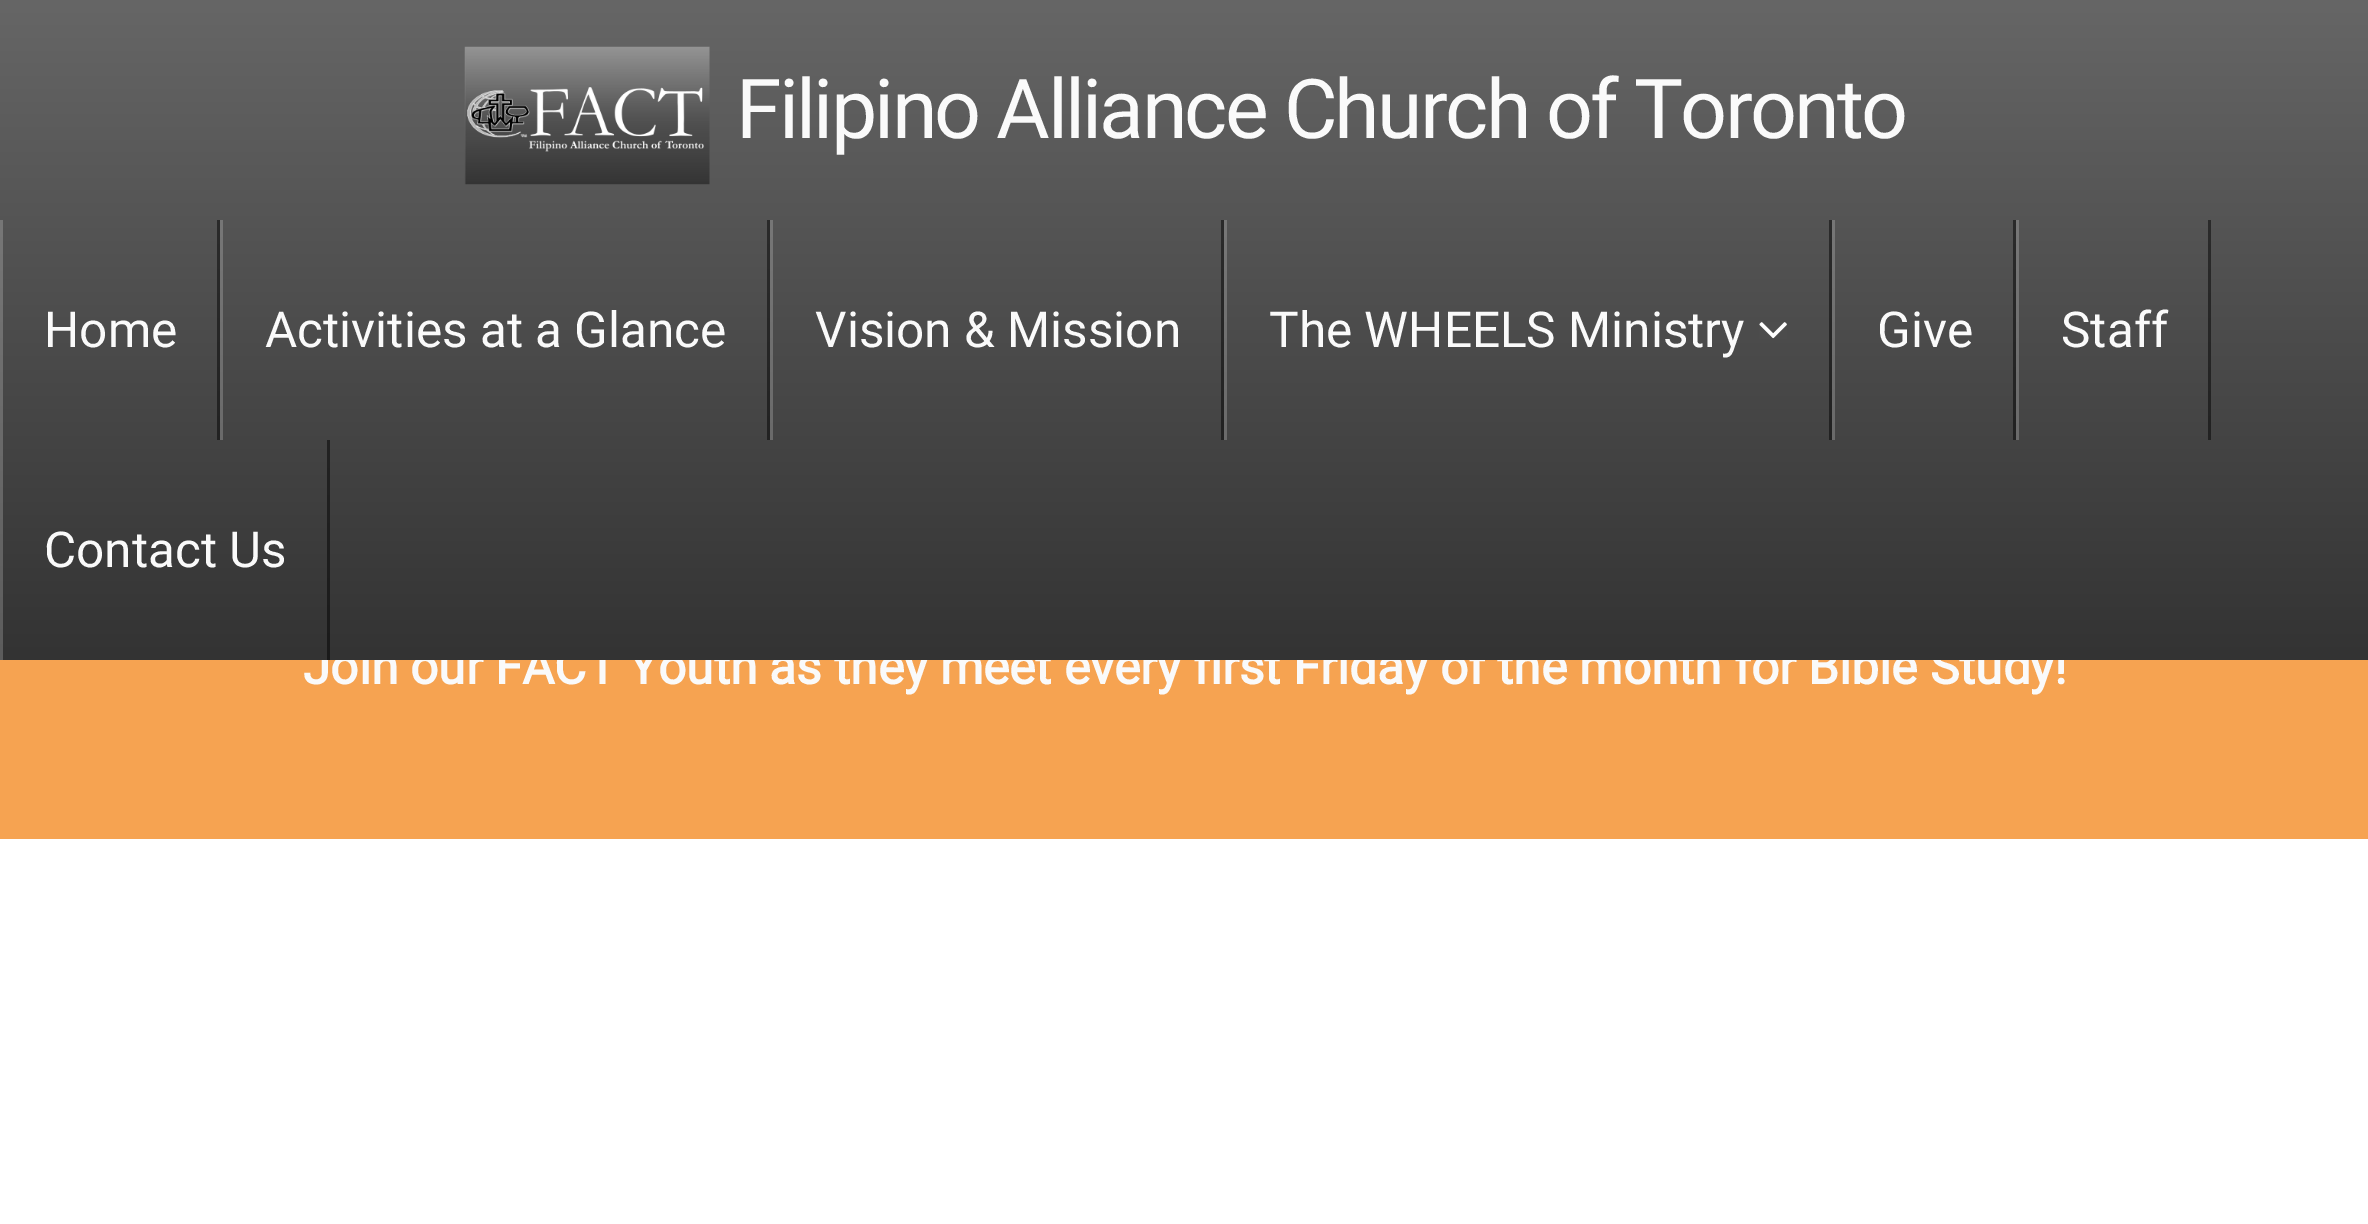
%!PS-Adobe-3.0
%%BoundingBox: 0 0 2368 1224
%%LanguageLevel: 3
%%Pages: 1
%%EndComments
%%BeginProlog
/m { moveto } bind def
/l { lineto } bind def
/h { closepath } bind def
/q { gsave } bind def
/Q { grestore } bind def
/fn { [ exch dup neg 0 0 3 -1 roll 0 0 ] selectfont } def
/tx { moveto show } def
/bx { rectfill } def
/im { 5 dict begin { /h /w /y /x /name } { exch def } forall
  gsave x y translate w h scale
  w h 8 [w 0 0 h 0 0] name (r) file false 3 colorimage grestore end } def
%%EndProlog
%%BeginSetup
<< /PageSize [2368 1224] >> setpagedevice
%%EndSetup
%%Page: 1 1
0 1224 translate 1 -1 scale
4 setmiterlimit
1 setgray
0 0 2368 1224 bx
0.965 0.639 0.318 setrgbcolor
0 660 2368 179 bx
/Roboto-Bold 49.5 fn
0.98 setgray
(Join our FACT Youth as they meet every first Friday of the month for Bible Study!) 303 684 tx
q 0 0 m 2368 0 l 2368 660 l 0 660 l h clip newpath
<< /ShadingType 2 /ColorSpace /DeviceRGB /Coords [1185 0 1185 660] /Extend [true true] /Function << /FunctionType 2 /Domain [0 1] /C0 [0.4 0.4 0.4] /C1 [0.2 0.2 0.2] /N 1 >> >> shfill Q
q 0 440 m 3 440 l 3 660 l 0 660 l h clip newpath
<< /ShadingType 2 /ColorSpace /DeviceRGB /Coords [1185 0 1185 660] /Extend [true true] /Function << /FunctionType 2 /Domain [0 1] /C0 [0.522 0.522 0.522] /C1 [0.361 0.361 0.361] /N 1 >> >> shfill Q
q 327 440 m 330 440 l 330 660 l 327 660 l h clip newpath
<< /ShadingType 2 /ColorSpace /DeviceRGB /Coords [1185 0 1185 660] /Extend [true true] /Function << /FunctionType 2 /Domain [0 1] /C0 [0.2 0.2 0.2] /C1 [0.102 0.102 0.102] /N 1 >> >> shfill Q
q 2016 220 m 2019 220 l 2019 440 l 2016 440 l h clip newpath
<< /ShadingType 2 /ColorSpace /DeviceRGB /Coords [1185 0 1185 660] /Extend [true true] /Function << /FunctionType 2 /Domain [0 1] /C0 [0.522 0.522 0.522] /C1 [0.361 0.361 0.361] /N 1 >> >> shfill Q
q 2208 220 m 2211 220 l 2211 440 l 2208 440 l h clip newpath
<< /ShadingType 2 /ColorSpace /DeviceRGB /Coords [1185 0 1185 660] /Extend [true true] /Function << /FunctionType 2 /Domain [0 1] /C0 [0.2 0.2 0.2] /C1 [0.102 0.102 0.102] /N 1 >> >> shfill Q
q 1832 220 m 1835 220 l 1835 440 l 1832 440 l h clip newpath
<< /ShadingType 2 /ColorSpace /DeviceRGB /Coords [1185 0 1185 660] /Extend [true true] /Function << /FunctionType 2 /Domain [0 1] /C0 [0.522 0.522 0.522] /C1 [0.361 0.361 0.361] /N 1 >> >> shfill Q
q 2013 220 m 2016 220 l 2016 440 l 2013 440 l h clip newpath
<< /ShadingType 2 /ColorSpace /DeviceRGB /Coords [1185 0 1185 660] /Extend [true true] /Function << /FunctionType 2 /Domain [0 1] /C0 [0.2 0.2 0.2] /C1 [0.102 0.102 0.102] /N 1 >> >> shfill Q
q 1224 220 m 1227 220 l 1227 440 l 1224 440 l h clip newpath
<< /ShadingType 2 /ColorSpace /DeviceRGB /Coords [1185 0 1185 660] /Extend [true true] /Function << /FunctionType 2 /Domain [0 1] /C0 [0.522 0.522 0.522] /C1 [0.361 0.361 0.361] /N 1 >> >> shfill Q
q 1829 220 m 1832 220 l 1832 440 l 1829 440 l h clip newpath
<< /ShadingType 2 /ColorSpace /DeviceRGB /Coords [1185 0 1185 660] /Extend [true true] /Function << /FunctionType 2 /Domain [0 1] /C0 [0.2 0.2 0.2] /C1 [0.102 0.102 0.102] /N 1 >> >> shfill Q
q 770 220 m 773 220 l 773 440 l 770 440 l h clip newpath
<< /ShadingType 2 /ColorSpace /DeviceRGB /Coords [1185 0 1185 660] /Extend [true true] /Function << /FunctionType 2 /Domain [0 1] /C0 [0.522 0.522 0.522] /C1 [0.361 0.361 0.361] /N 1 >> >> shfill Q
q 1221 220 m 1224 220 l 1224 440 l 1221 440 l h clip newpath
<< /ShadingType 2 /ColorSpace /DeviceRGB /Coords [1185 0 1185 660] /Extend [true true] /Function << /FunctionType 2 /Domain [0 1] /C0 [0.2 0.2 0.2] /C1 [0.102 0.102 0.102] /N 1 >> >> shfill Q
q 220 220 m 223 220 l 223 440 l 220 440 l h clip newpath
<< /ShadingType 2 /ColorSpace /DeviceRGB /Coords [1185 0 1185 660] /Extend [true true] /Function << /FunctionType 2 /Domain [0 1] /C0 [0.522 0.522 0.522] /C1 [0.361 0.361 0.361] /N 1 >> >> shfill Q
q 767 220 m 770 220 l 770 440 l 767 440 l h clip newpath
<< /ShadingType 2 /ColorSpace /DeviceRGB /Coords [1185 0 1185 660] /Extend [true true] /Function << /FunctionType 2 /Domain [0 1] /C0 [0.2 0.2 0.2] /C1 [0.102 0.102 0.102] /N 1 >> >> shfill Q
q 0 220 m 3 220 l 3 440 l 0 440 l h clip newpath
<< /ShadingType 2 /ColorSpace /DeviceRGB /Coords [1185 0 1185 660] /Extend [true true] /Function << /FunctionType 2 /Domain [0 1] /C0 [0.522 0.522 0.522] /C1 [0.361 0.361 0.361] /N 1 >> >> shfill Q
q 217 220 m 220 220 l 220 440 l 217 440 l h clip newpath
<< /ShadingType 2 /ColorSpace /DeviceRGB /Coords [1185 0 1185 660] /Extend [true true] /Function << /FunctionType 2 /Domain [0 1] /C0 [0.2 0.2 0.2] /C1 [0.102 0.102 0.102] /N 1 >> >> shfill Q
(image0.raw) 464 46 246 139 im
/Roboto-Regular 82.5 fn
736 138 m -2.75 0 (Filipino Alliance Church of Toronto) ashow
/Roboto-Regular 49.5 fn
(Home) 44 347 tx
(Activities at a Glance) 265 347 tx
(Vision & Mission) 815 347 tx
(The WHEELS Ministry) 1269 347 tx
(image1.raw) 1759 322 28 17 im
(Give) 1877 347 tx
(Staff) 2061 347 tx
(Contact Us) 44 567 tx
showpage
%%EOF
